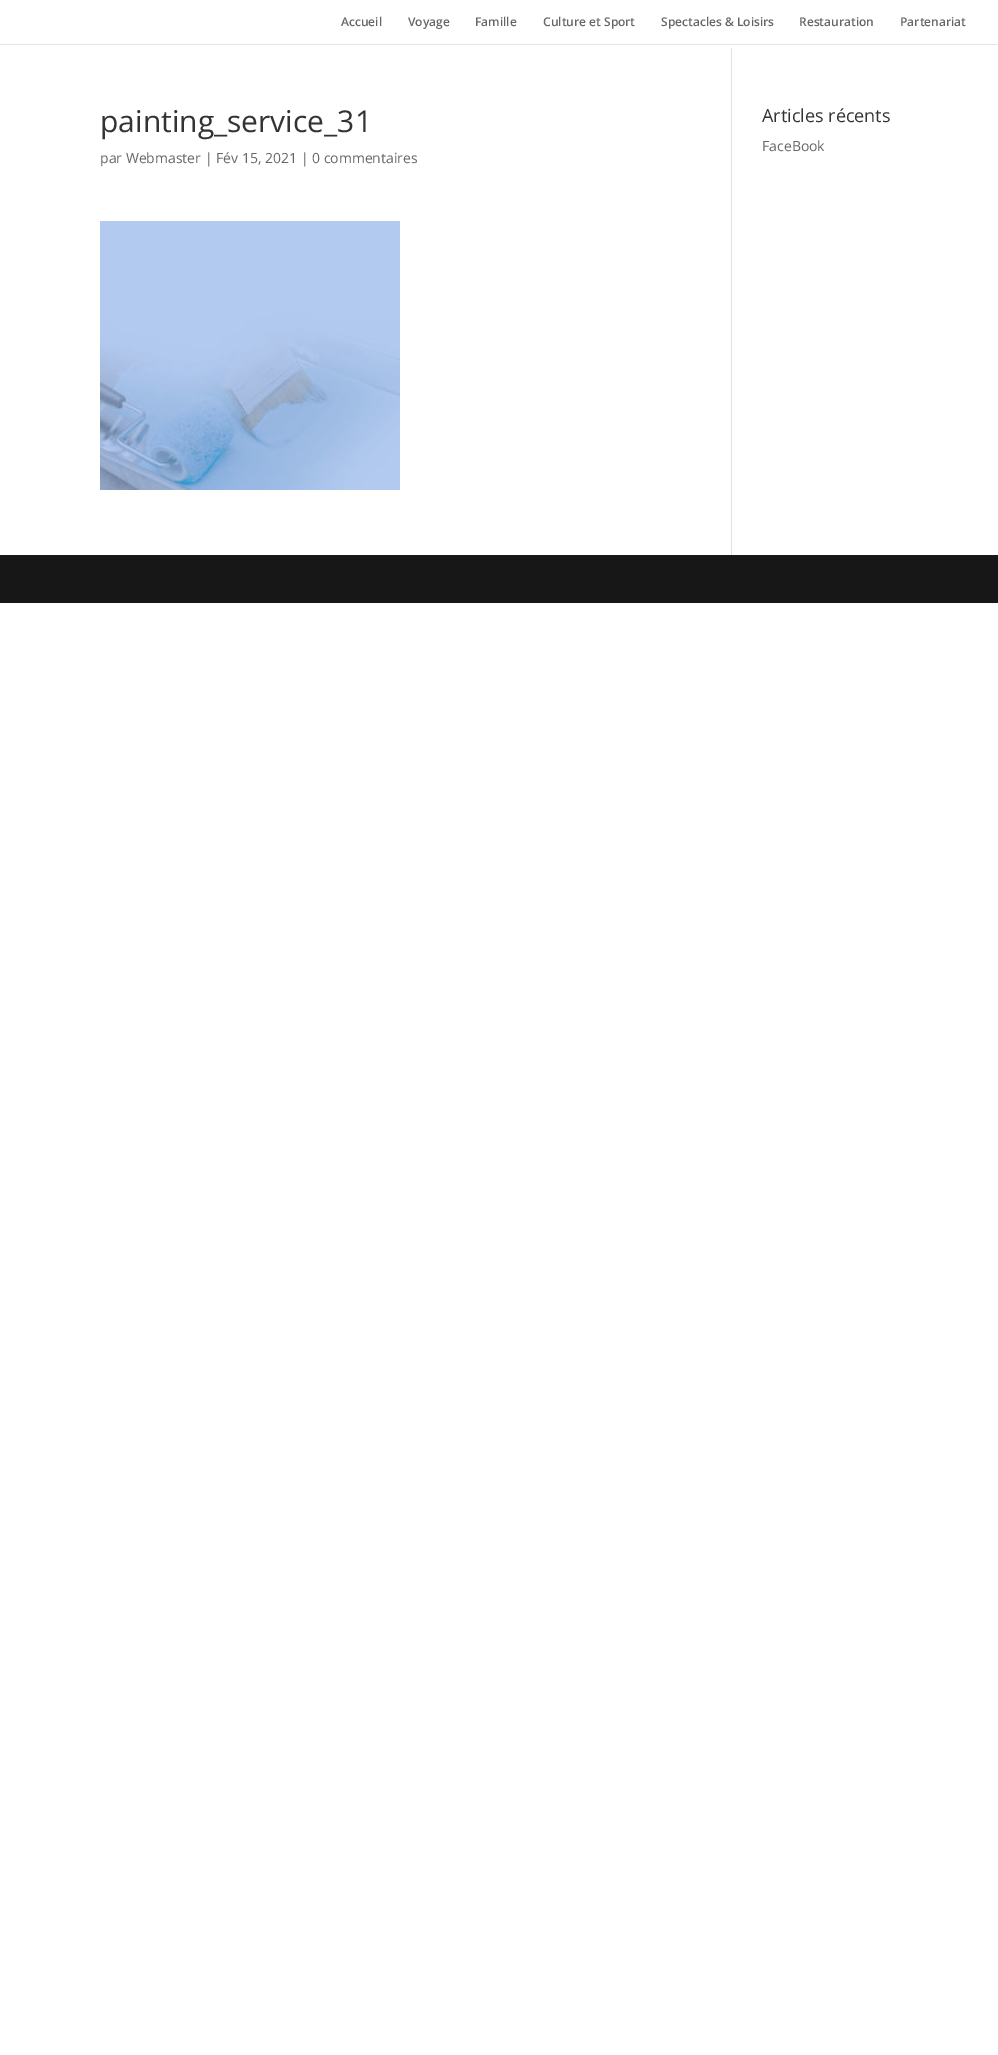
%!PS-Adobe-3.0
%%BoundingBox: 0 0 998 2055
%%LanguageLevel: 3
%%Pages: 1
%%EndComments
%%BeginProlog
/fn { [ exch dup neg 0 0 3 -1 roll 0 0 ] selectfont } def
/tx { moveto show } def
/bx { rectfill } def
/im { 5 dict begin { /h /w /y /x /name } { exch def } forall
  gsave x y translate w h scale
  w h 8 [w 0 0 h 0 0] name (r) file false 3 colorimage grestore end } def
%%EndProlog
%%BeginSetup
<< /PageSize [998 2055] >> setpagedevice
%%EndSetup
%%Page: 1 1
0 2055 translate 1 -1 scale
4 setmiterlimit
1 setgray
0 0 998 2055 bx
0.902 setgray
0 44 998 1 bx
/OpenSans-SemiBold 12 fn
0.4 setgray
(Accueil) 341 26 tx
(Voyage) 408 26 tx
(Famille) 475 26 tx
(Culture et Sport) 543 26 tx
(Spectacles & Loisirs) 661 26 tx
(Restauration) 799 26 tx
(Partenariat) 900 26 tx
0.886 setgray
731 48 1 507 bx
/OpenSans-Regular 30 fn
0.2 setgray
(painting_service_31) 100 132 tx
/OpenSans-Regular 14 fn
0.4 setgray
(par Webmaster | Fév 15, 2021 | 0 commentaires) 100 163 tx
(image0.raw) 100 221 300 269 im
/OpenSans-Regular 18 fn
0.2 setgray
(Articles récents) 762 122 tx
/OpenSans-Regular 14 fn
0.4 setgray
(FaceBook) 762 151 tx
0.09 setgray
0 555 998 48 bx
showpage
%%EOF
